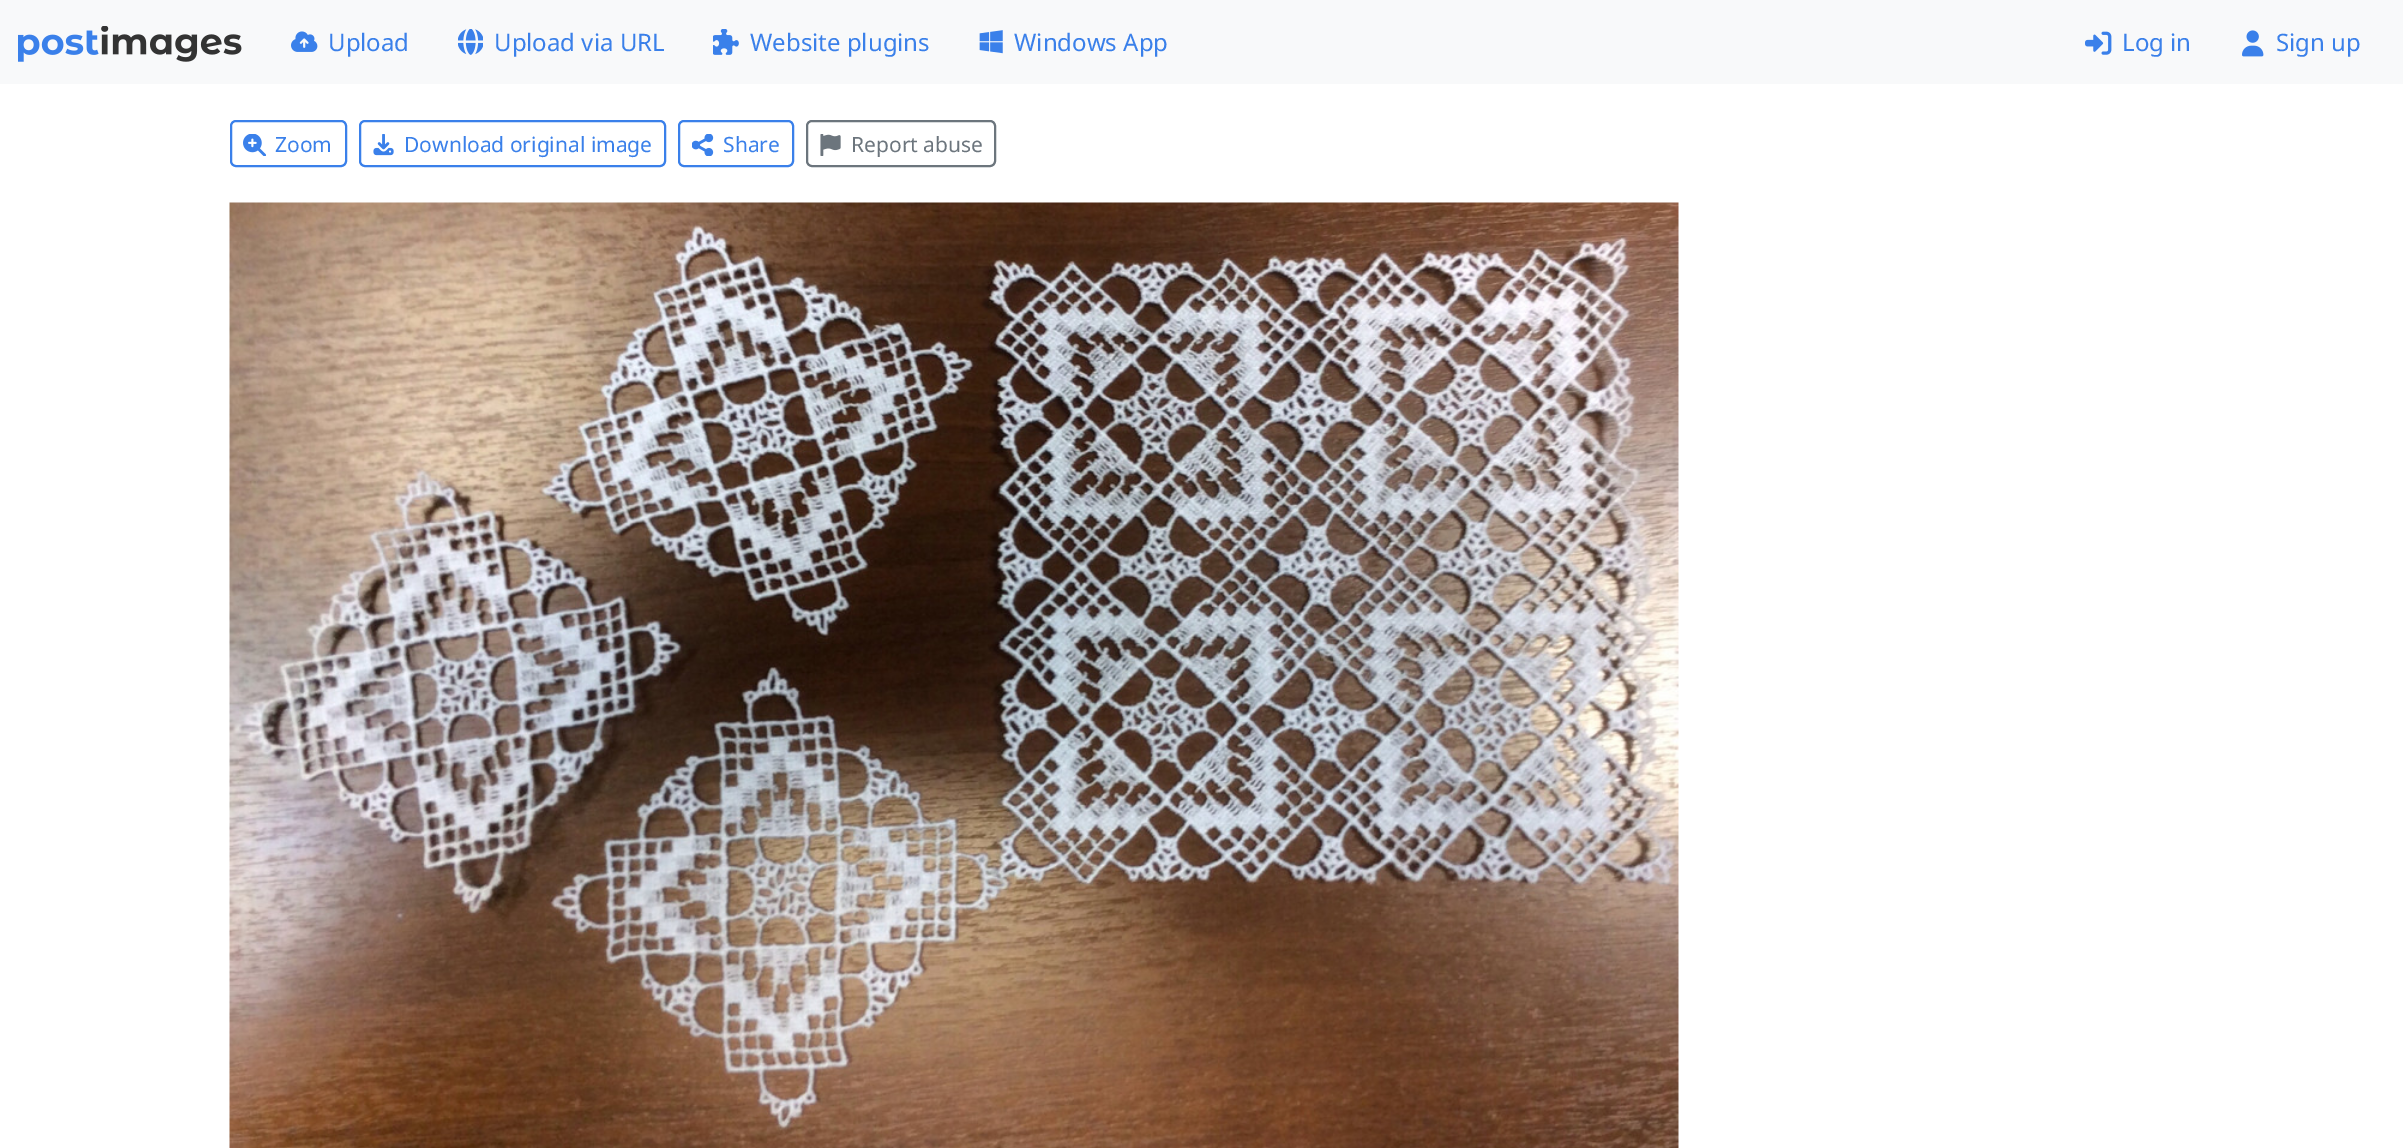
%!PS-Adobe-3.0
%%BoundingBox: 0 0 2403 1148
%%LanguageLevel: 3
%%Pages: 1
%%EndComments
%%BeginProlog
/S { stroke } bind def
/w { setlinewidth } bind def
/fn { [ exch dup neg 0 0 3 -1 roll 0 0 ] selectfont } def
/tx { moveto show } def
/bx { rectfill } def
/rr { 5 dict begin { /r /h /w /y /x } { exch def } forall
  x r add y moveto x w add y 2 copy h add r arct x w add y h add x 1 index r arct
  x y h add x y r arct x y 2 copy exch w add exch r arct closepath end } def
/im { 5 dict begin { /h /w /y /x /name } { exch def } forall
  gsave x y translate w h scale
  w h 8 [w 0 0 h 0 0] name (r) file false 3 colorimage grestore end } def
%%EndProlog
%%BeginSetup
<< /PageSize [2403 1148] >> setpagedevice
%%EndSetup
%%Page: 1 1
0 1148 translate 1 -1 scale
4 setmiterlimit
1 setgray
0 0 2403 1148 bx
0.973 0.976 0.98 setrgbcolor
0 0 2403 84 bx
(image0.raw) 18 26 224 36 im
(image1.raw) 291 31 27 21 im
/NotoSans-Regular 24 fn
0.227 0.502 0.918 setrgbcolor
(Upload) 328 51 tx
(image2.raw) 458 29 25 26 im
(Upload via URL) 494 51 tx
(image3.raw) 713 29 26 26 im
(Website plugins) 750 51 tx
(image4.raw) 979 30 24 24 im
(Windows App) 1014 51 tx
(image5.raw) 2085 31 27 24 im
(Log in) 2122 51 tx
(image6.raw) 2242 30 22 27 im
(Sign up) 2276 51 tx
2 w
231 121 115 45 5 rr S
(image7.raw) 243 134 23 22 im
/NotoSans-Regular 21 fn
(Zoom) 275 152 tx
360 121 305 45 5 rr S
(image8.raw) 373 134 21 22 im
(Download original image) 404 152 tx
679 121 114 45 5 rr S
(image9.raw) 692 134 22 22 im
(Share) 723 152 tx
0.424 0.459 0.49 setrgbcolor
807 121 188 45 5 rr S
(image10.raw) 820 134 21 22 im
(Report abuse) 851 152 tx
(image11.raw) 229 202 1450 946 im
showpage
%%EOF
